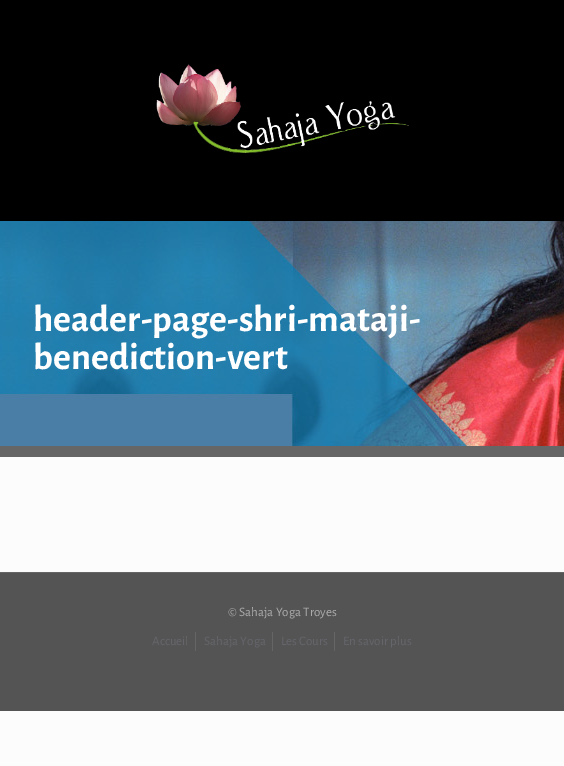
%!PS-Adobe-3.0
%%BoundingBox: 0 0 564 766
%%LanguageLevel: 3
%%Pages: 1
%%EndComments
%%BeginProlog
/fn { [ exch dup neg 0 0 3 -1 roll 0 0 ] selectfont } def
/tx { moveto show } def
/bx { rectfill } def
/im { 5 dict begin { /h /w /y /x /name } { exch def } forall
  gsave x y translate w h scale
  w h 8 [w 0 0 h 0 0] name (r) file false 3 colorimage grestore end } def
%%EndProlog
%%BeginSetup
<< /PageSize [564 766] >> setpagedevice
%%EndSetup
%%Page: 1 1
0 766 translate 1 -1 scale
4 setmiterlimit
0.988 setgray
0 0 564 766 bx
0.4 setgray
0 446 564 11 bx
(image0.raw) 0 221 564 225 im
0 setgray
0 0 564 221 bx
(image1.raw) 156 64 253 89 im
/AlegreyaSans-Bold 38 fn
1 setgray
(header-page-shri-mataji-) 33 331 tx
(benediction-vert) 33 369 tx
0.329 setgray
0 573 564 138 bx
0.396 setgray
0 572 564 1 bx
/AlegreyaSans-Regular 13 fn
0.675 setgray
(© Sahaja Yoga Troyes) 228 616 tx
0.396 setgray
195 632 1 19 bx
0.396 0.4 0.424 setrgbcolor
(Accueil) 152 645 tx
0.396 setgray
272 632 1 19 bx
0.396 0.4 0.424 setrgbcolor
(Sahaja Yoga) 204 645 tx
0.396 setgray
334 632 1 19 bx
0.396 0.4 0.424 setrgbcolor
(Les Cours) 281 645 tx
(En savoir plus) 343 645 tx
showpage
%%EOF
